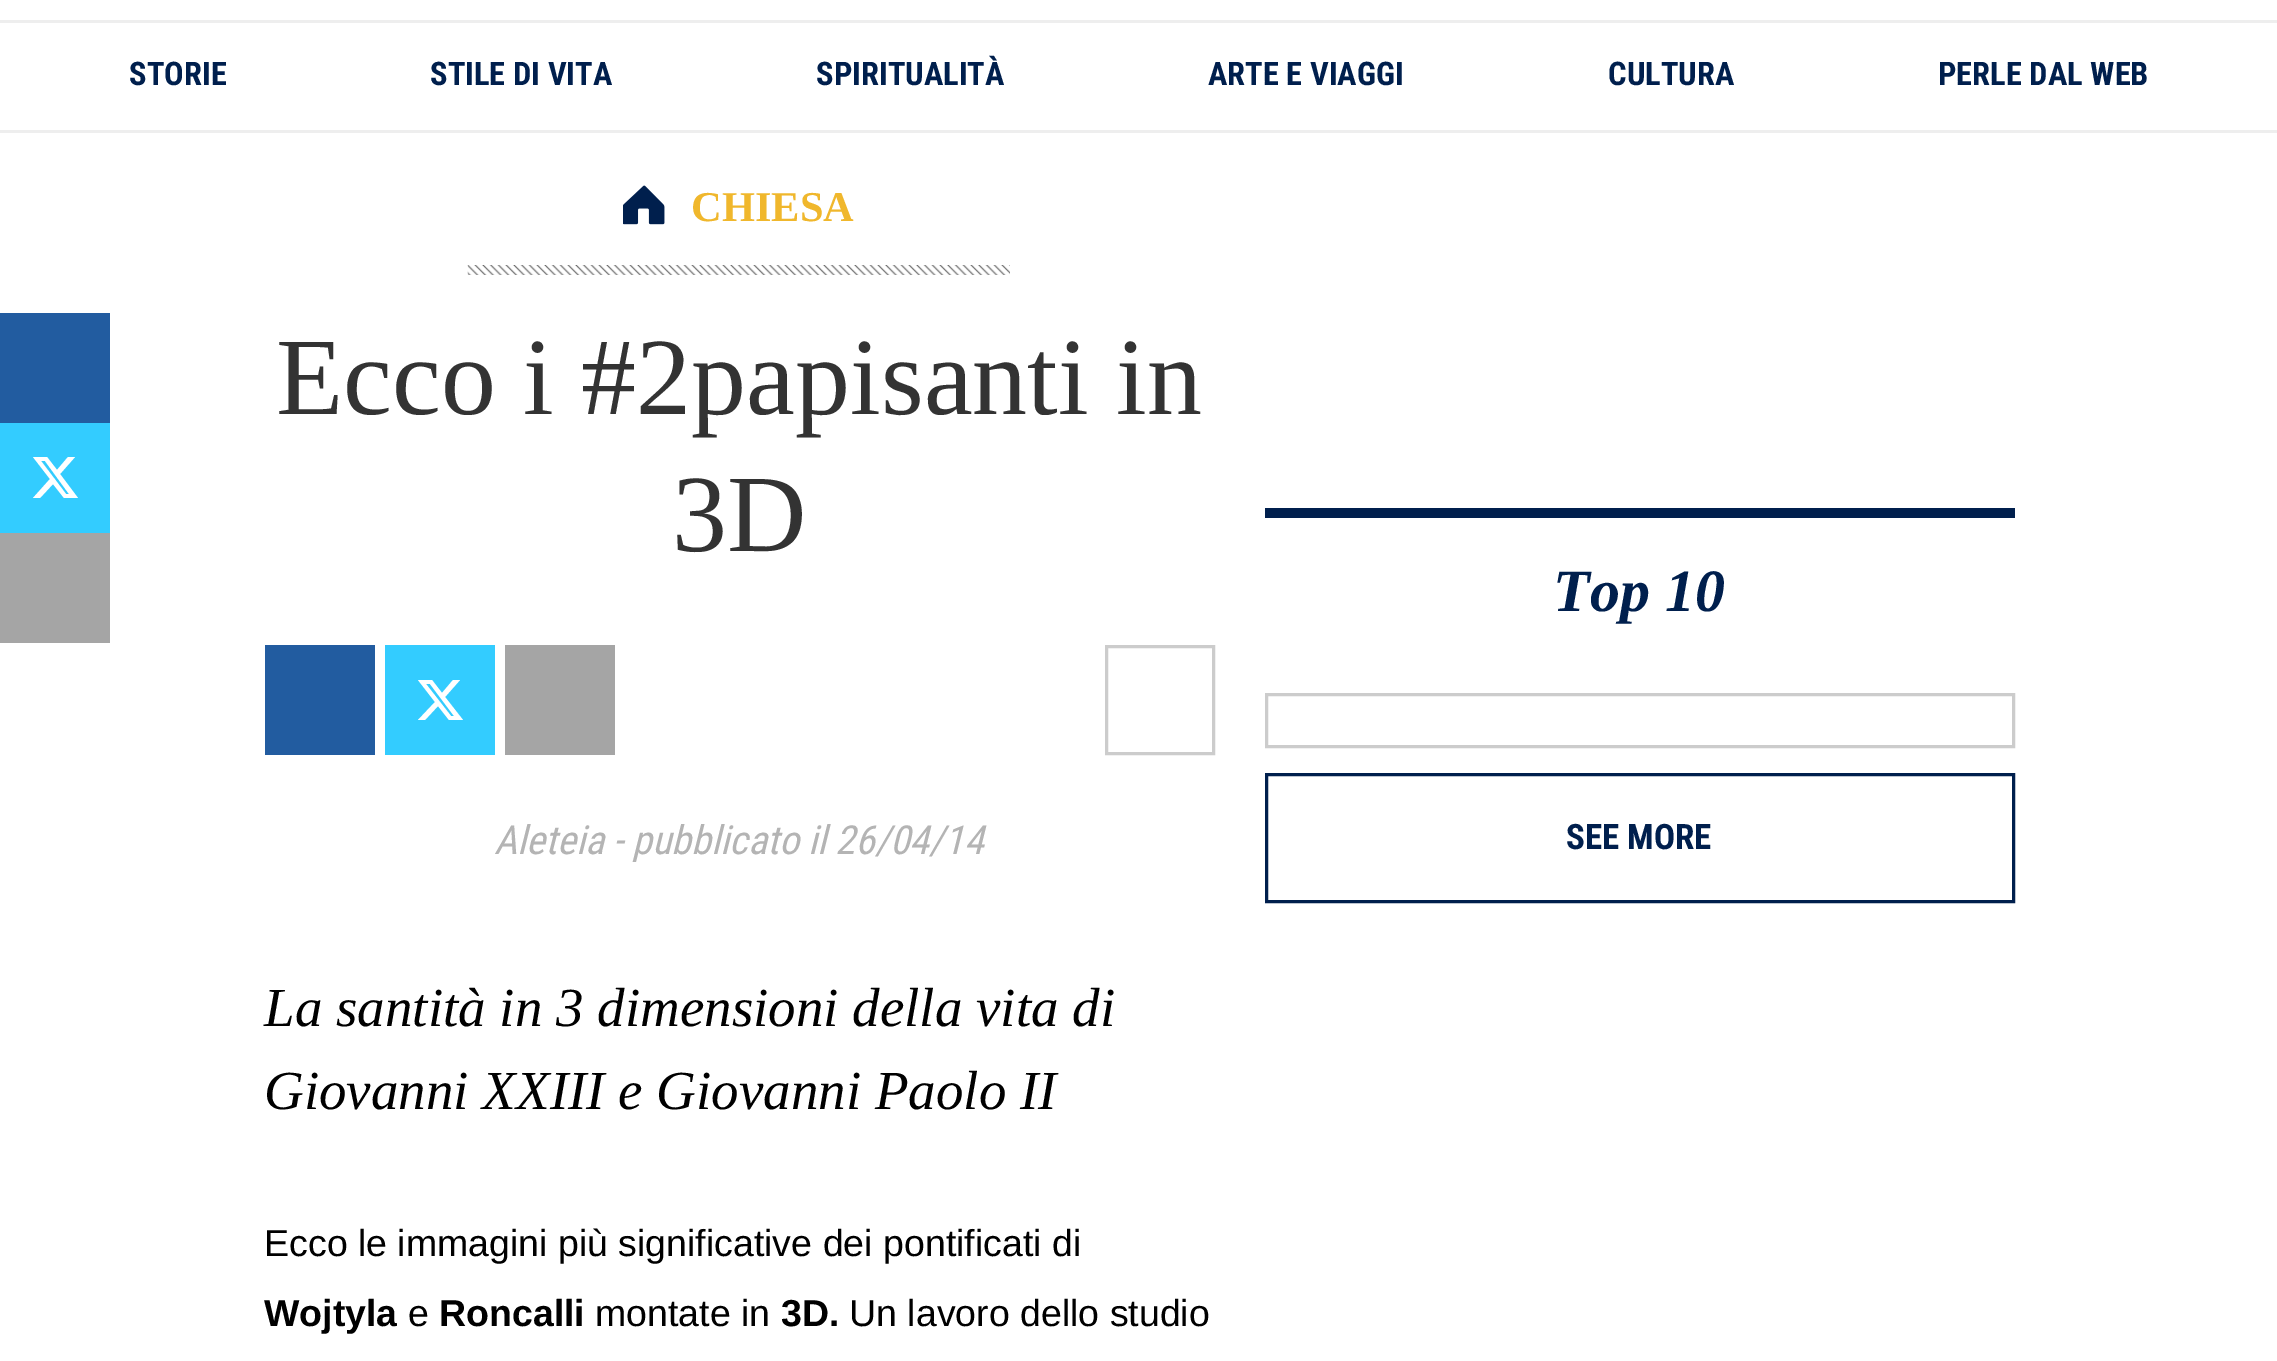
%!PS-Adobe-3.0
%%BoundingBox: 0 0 2277 1361
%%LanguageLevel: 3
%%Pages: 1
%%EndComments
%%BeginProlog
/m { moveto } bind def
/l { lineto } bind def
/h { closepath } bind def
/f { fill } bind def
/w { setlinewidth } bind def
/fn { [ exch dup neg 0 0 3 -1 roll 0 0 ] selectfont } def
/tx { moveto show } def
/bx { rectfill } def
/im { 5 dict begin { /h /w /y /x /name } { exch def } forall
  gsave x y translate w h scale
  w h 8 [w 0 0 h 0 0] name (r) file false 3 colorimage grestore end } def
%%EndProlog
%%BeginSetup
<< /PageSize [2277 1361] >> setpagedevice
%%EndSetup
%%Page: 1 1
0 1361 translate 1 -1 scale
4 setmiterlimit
1 setgray
0 0 2277 1361 bx
0.933 setgray
0 20 2277 3 bx
0 130 2277 3 bx
/RobotoCondensed-Bold 32.5 fn
0 0.122 0.302 setrgbcolor
(STORIE) 129 85 tx
(STILE DI VITA) 430 85 tx
(SPIRITUALITÀ) 816 85 tx
(ARTE E VIAGGI) 1208 85 tx
(CULTURA) 1608 85 tx
(PERLE DAL WEB) 1938 85 tx
(image0.raw) 623 185 42 40 im
/LiberationSerif-Bold 42.5 fn
0.941 0.718 0.173 setrgbcolor
(CHIESA) 691 221 tx
(image1.raw) 467 265 543 10 im
0.133 0.361 0.627 setrgbcolor
0 313 110 110 bx
0.2 0.8 1 setrgbcolor
0 423 110 110 bx
1 setgray
68 457 m 75 457 l 60 474 l 78 498 l 64 498 l 53 484 l 40 498 l 33 498 l 50 479 l 33 457 l 47 457 l 57 470 l h 66 494 m 69 494 l 45 461 l 41 461 l h f
0.647 setgray
0 533 110 110 bx
/LiberationSerif-Regular 110 fn
0.2 setgray
(Ecco i #2papisanti in) 276 414 tx
(3D) 672 551 tx
0.133 0.361 0.627 setrgbcolor
265 645 110 110 bx
0.2 0.8 1 setrgbcolor
385 645 110 110 bx
1 setgray
453 680 m 460 680 l 445 697 l 463 720 l 449 720 l 438 706 l 425 720 l 418 720 l 435 702 l 418 680 l 432 680 l 442 693 l h 451 716 m 454 716 l 430 684 l 426 684 l h f
0.647 setgray
505 645 110 110 bx
0.8 setgray
3 w
1106.5 646.5 107 107 rectstroke
/RobotoCondensed-Italic 40 fn
0.706 setgray
(Aleteia - pubblicato il 26/04/14) 494 854 tx
/LiberationSerif-Italic 55 fn
0 setgray
(La santità in 3 dimensioni della vita di) 264 1026 tx
(Giovanni XXIII e Giovanni Paolo II) 264 1109 tx
/LiberationSans-Regular 37.5 fn
(Ecco le immagini più significative dei pontificati di) 264 1256 tx
/LiberationSans-Bold 37.5 fn
(Wojtyla) 264 1326 tx
/LiberationSans-Regular 37.5 fn
(e) 408 1326 tx
/LiberationSans-Bold 37.5 fn
(Roncalli) 439 1326 tx
/LiberationSans-Regular 37.5 fn
(montate in) 595 1326 tx
/LiberationSans-Bold 37.5 fn
(3D.) 781 1326 tx
/LiberationSans-Regular 37.5 fn
(Un lavoro dello studio) 849 1326 tx
0 0.122 0.302 setrgbcolor
1265 508 750 10 bx
/LiberationSerif-BoldItalic 60 fn
(Top 10) 1553 611 tx
0.8 setgray
1266.5 694.5 747 52 rectstroke
0 0.122 0.302 setrgbcolor
1266.5 774.5 747 127 rectstroke
/RobotoCondensed-Bold 35 fn
(SEE MORE) 1566 849 tx
showpage
%%EOF
